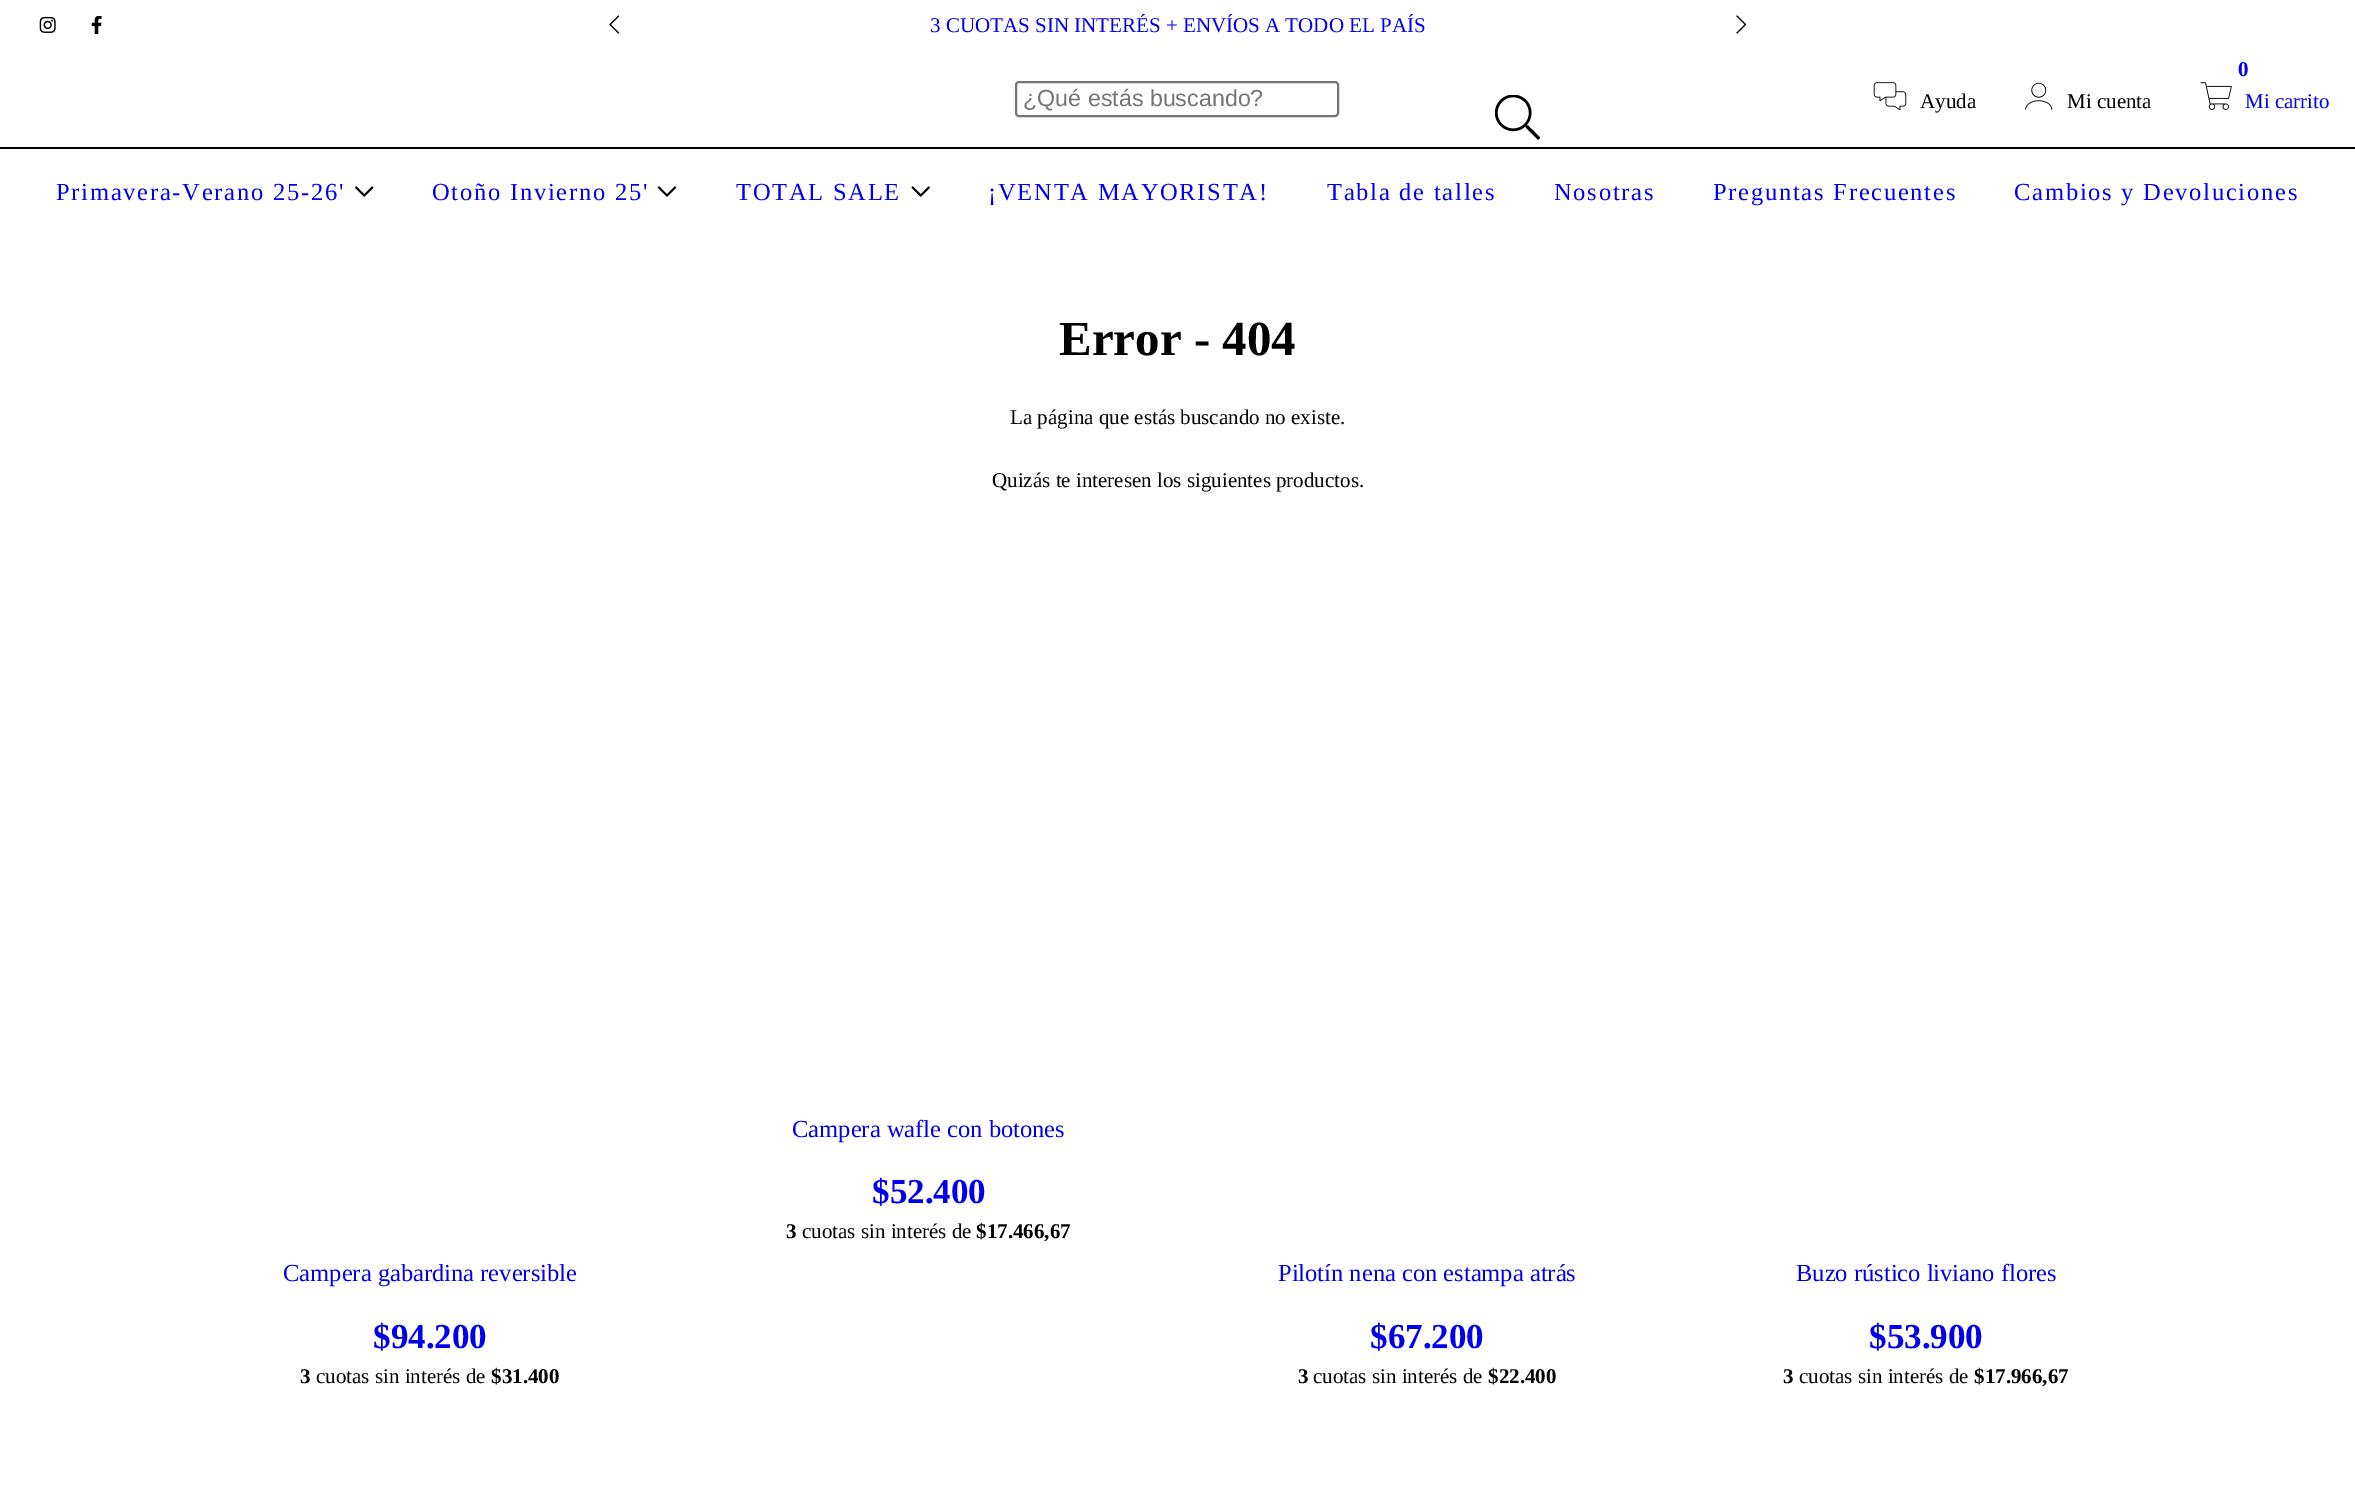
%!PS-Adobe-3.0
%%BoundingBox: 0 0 2355 1495
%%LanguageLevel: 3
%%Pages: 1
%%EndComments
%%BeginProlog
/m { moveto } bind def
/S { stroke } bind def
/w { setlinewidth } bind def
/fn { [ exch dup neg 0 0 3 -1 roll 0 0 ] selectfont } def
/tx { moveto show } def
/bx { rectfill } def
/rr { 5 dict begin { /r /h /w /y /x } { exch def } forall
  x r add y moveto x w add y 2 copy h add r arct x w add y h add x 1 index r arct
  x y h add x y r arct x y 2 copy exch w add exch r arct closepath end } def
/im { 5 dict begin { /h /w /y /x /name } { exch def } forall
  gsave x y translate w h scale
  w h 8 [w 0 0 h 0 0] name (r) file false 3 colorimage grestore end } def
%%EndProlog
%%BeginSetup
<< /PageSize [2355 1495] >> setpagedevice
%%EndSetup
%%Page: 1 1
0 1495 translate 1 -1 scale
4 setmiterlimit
1 setgray
0 0 2355 1495 bx
(image0.raw) 39 16 17 17 im
(image1.raw) 91 16 11 18 im
(image2.raw) 609 15 11 19 im
/LiberationSerif-Regular 21 fn
0 0 0.933 setrgbcolor
(3 CUOTAS SIN INTERÉS + ENVÍOS A TODO EL PAÍS) 930 32 tx
(image3.raw) 1736 15 11 19 im
0.463 setgray
2 w
1016 82 322 34 3 rr S
/LiberationSans-Regular 23.25 fn
0.459 setgray
(¿Qué estás buscando?) 1023 106 tx
(image4.raw) 1495 95 45 45 im
(image5.raw) 1873 82 34 28 im
/LiberationSerif-Regular 21 fn
0 setgray
(Ayuda) 1920 108 tx
(image6.raw) 2025 82 28 28 im
(Mi cuenta) 2067 108 tx
/LiberationSerif-Bold 21 fn
0 0 0.933 setrgbcolor
(0) 2238 76 tx
(image7.raw) 2200 82 32 28 im
/LiberationSerif-Regular 21 fn
(Mi carrito) 2245 108 tx
0 setgray
0 147 2355 2 bx
/LiberationSerif-Regular 24.5 fn
0 0 0.933 setrgbcolor
56 200 m 1.75 0 (Primavera-Verano 25-26') ashow
(image8.raw) 355 186 19 11 im
432 200 m 1.75 0 (Otoño Invierno 25') ashow
(image9.raw) 657 186 20 11 im
736 200 m 1.75 0 (TOTAL SALE) ashow
(image10.raw) 911 186 19 11 im
988 200 m 1.75 0 (¡VENTA MAYORISTA!) ashow
1327 200 m 1.75 0 (Tabla de talles) ashow
1554 200 m 1.75 0 (Nosotras) ashow
1713 200 m 1.75 0 (Preguntas Frecuentes) ashow
2014 200 m 1.75 0 (Cambios y Devoluciones) ashow
/LiberationSerif-Bold 49 fn
0 setgray
(Error - 404) 1059 355 tx
/LiberationSerif-Regular 21 fn
(La página que estás buscando no existe.) 1010 424 tx
(Quizás te interesen los siguientes productos.) 992 487 tx
/LiberationSerif-Regular 24.5 fn
0 0 0.933 setrgbcolor
(Campera wafle con botones) 792 1137 tx
/LiberationSerif-Bold 35 fn
($52.400) 872 1203 tx
/LiberationSerif-Bold 21 fn
0 setgray
(3) 786 1238 tx
/LiberationSerif-Regular 21 fn
(cuotas sin interés de) 802 1238 tx
/LiberationSerif-Bold 21 fn
($17.466,67) 976 1238 tx
/LiberationSerif-Regular 24.5 fn
0 0 0.933 setrgbcolor
(Campera gabardina reversible) 283 1281 tx
/LiberationSerif-Bold 35 fn
($94.200) 373 1348 tx
/LiberationSerif-Bold 21 fn
0 setgray
(3) 300 1383 tx
/LiberationSerif-Regular 21 fn
(cuotas sin interés de) 316 1383 tx
/LiberationSerif-Bold 21 fn
($31.400) 491 1383 tx
/LiberationSerif-Regular 24.5 fn
0 0 0.933 setrgbcolor
(Pilotín nena con estampa atrás) 1278 1281 tx
/LiberationSerif-Bold 35 fn
($67.200) 1370 1348 tx
/LiberationSerif-Bold 21 fn
0 setgray
(3) 1298 1383 tx
/LiberationSerif-Regular 21 fn
(cuotas sin interés de) 1313 1383 tx
/LiberationSerif-Bold 21 fn
($22.400) 1488 1383 tx
/LiberationSerif-Regular 24.5 fn
0 0 0.933 setrgbcolor
(Buzo rústico liviano flores) 1796 1281 tx
/LiberationSerif-Bold 35 fn
($53.900) 1869 1348 tx
/LiberationSerif-Bold 21 fn
0 setgray
(3) 1783 1383 tx
/LiberationSerif-Regular 21 fn
(cuotas sin interés de) 1799 1383 tx
/LiberationSerif-Bold 21 fn
($17.966,67) 1974 1383 tx
showpage
%%EOF
